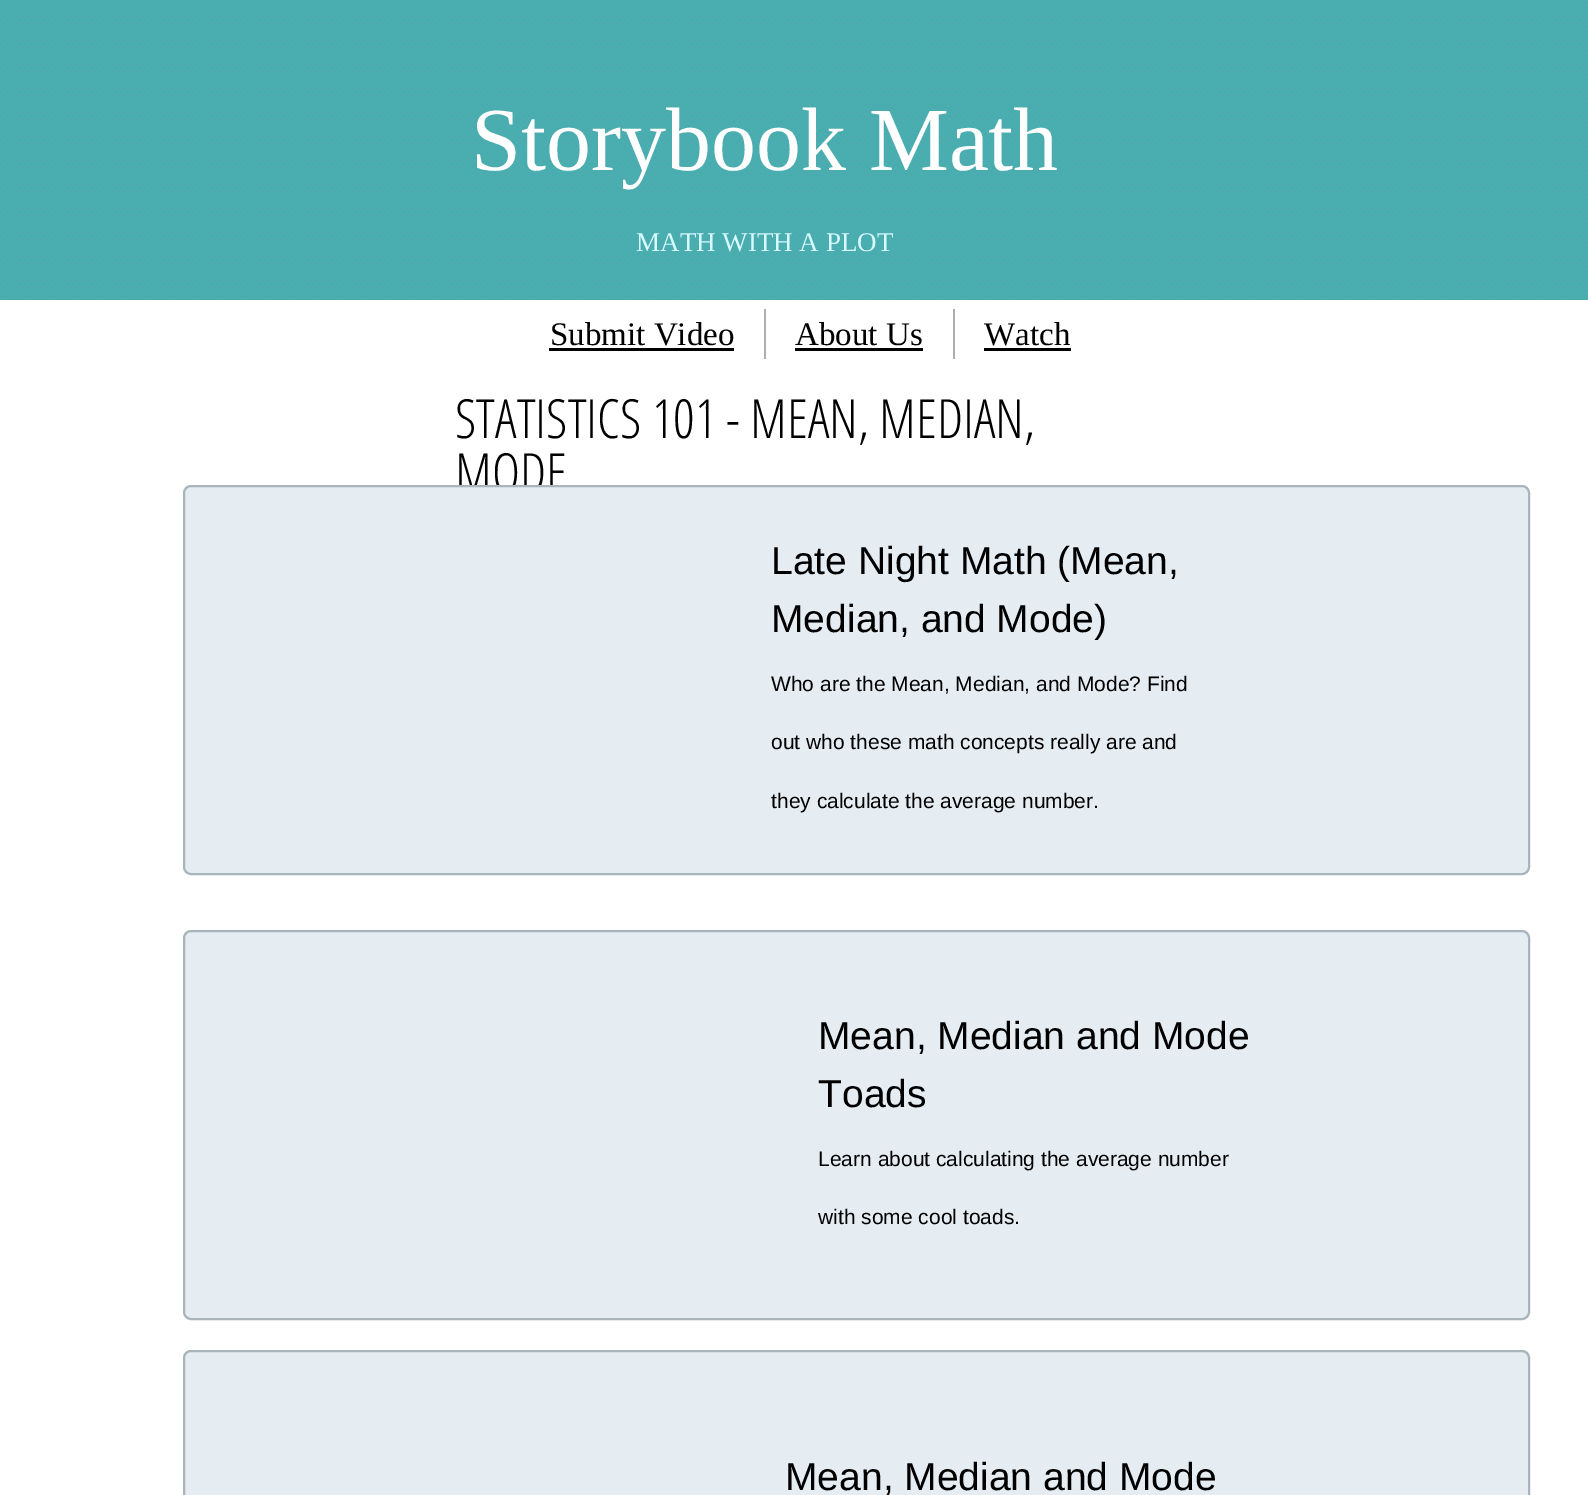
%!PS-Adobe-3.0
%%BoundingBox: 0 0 1588 1495
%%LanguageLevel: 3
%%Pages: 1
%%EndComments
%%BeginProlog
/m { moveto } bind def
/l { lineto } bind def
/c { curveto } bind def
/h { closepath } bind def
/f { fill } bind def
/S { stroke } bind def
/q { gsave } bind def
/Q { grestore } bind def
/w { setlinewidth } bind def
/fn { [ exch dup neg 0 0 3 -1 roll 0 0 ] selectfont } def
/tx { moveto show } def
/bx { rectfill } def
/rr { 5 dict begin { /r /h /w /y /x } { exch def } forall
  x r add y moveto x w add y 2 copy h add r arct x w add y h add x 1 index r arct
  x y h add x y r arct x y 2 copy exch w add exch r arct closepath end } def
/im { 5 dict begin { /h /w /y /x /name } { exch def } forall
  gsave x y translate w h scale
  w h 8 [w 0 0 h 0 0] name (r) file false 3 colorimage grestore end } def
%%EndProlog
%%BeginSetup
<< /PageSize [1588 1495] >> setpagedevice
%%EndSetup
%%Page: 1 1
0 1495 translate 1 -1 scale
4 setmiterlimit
1 setgray
0 0 1588 1495 bx
(image0.raw) 0 0 1588 300 im
/LiberationSerif-Regular 90 fn
(Storybook Math) 471 170 tx
/LiberationSerif-Regular 27 fn
0.847 0.984 1 setrgbcolor
(MATH WITH A PLOT) 636 251 tx
0.682 setgray
764 309 2 50 bx
/LiberationSerif-Regular 33 fn
0 setgray
(Submit Video) 550 345 tx
549 348 185 3 bx
0.682 setgray
953 309 2 50 bx
0 setgray
(About Us) 795 345 tx
795 348 128 3 bx
(Watch) 984 345 tx
984 348 87 3 bx
/OpenSansCondensed-Light 54 fn
(STATISTICS 101 - MEAN, MEDIAN,) 455 438 tx
(MODE) 455 492 tx
0.898 0.929 0.949 setrgbcolor
184 486 1345 388 7 rr q f Q
0.663 0.706 0.733 setrgbcolor
2 w
S
/LiberationSans-Regular 39 fn
0 setgray
(Late Night Math \(Mean,) 771 574 tx
(Median, and Mode\)) 771 632 tx
/LiberationSans-Regular 21 fn
(Who are the Mean, Median, and Mode? Find) 771 691 tx
(out who these math concepts really are and) 771 749 tx
(they calculate the average number.) 771 808 tx
0.898 0.929 0.949 setrgbcolor
184 931 1345 388 7 rr q f Q
0.663 0.706 0.733 setrgbcolor
S
/LiberationSans-Regular 39 fn
0 setgray
(Mean, Median and Mode) 818 1049 tx
(Toads) 818 1107 tx
/LiberationSans-Regular 21 fn
(Learn about calculating the average number) 818 1166 tx
(with some cool toads.) 818 1224 tx
0.898 0.929 0.949 setrgbcolor
191 1350 m 1522 1350 l 1526.5 1350 1530 1353.5 1530 1358 c 1530 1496 l 183 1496 l 183 1358 l 183 1353.5 186.5 1350 191 1350 c h f
0.663 0.706 0.733 setrgbcolor
184 1351 1345 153 7 rr S
/LiberationSans-Regular 39 fn
0 setgray
(Mean, Median and Mode) 785 1490 tx
showpage
%%EOF
